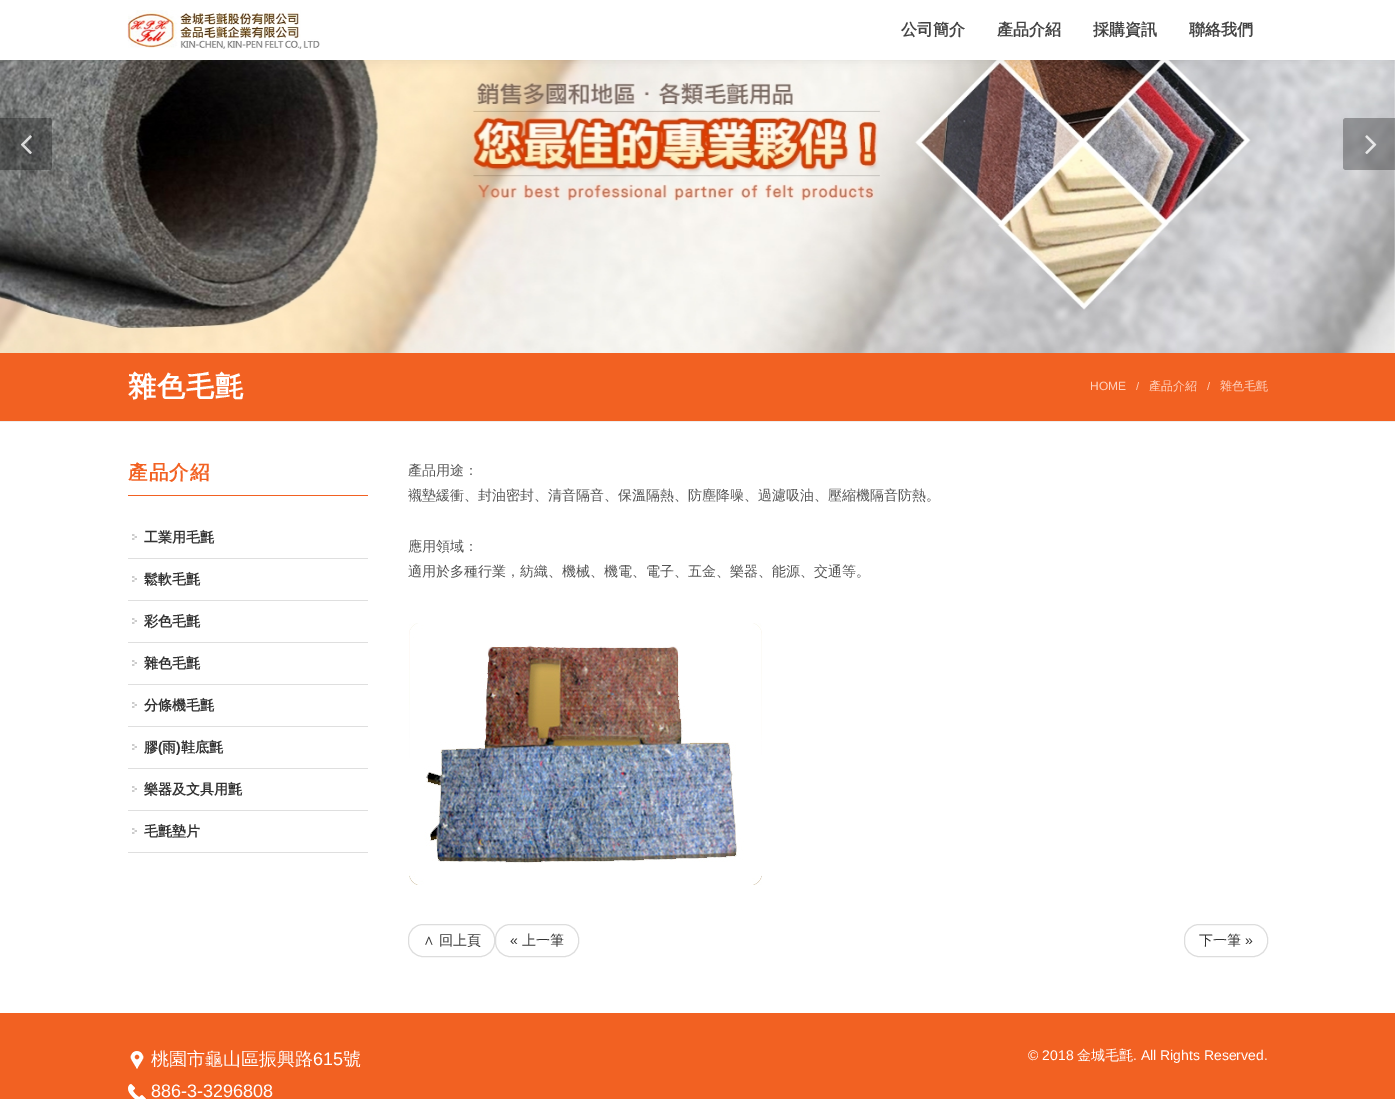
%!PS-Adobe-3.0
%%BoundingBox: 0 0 1395 1099
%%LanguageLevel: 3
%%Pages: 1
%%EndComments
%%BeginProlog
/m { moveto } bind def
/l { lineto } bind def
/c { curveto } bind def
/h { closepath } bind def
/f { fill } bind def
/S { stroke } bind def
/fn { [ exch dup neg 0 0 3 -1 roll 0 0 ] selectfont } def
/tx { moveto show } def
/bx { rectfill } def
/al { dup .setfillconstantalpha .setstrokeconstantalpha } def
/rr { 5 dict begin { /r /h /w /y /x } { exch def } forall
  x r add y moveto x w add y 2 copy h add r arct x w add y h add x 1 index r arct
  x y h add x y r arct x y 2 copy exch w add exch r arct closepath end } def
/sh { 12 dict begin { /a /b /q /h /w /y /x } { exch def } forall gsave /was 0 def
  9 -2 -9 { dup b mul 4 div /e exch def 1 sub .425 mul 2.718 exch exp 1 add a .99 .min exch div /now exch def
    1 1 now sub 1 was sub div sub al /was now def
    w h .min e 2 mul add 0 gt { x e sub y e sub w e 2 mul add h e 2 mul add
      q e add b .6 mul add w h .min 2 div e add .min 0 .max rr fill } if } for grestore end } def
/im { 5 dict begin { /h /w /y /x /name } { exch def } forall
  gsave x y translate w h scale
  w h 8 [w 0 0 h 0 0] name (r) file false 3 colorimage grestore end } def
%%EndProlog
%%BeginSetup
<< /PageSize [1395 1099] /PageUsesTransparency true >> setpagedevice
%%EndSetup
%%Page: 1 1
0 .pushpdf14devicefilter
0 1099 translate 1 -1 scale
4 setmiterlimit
1 setgray
0 0 1395 1099 bx
(image1.raw) 0 60 1395 293 im
0 setgray
0 0 1395 60 0 5 0.1 sh
1 setgray
0 0 1395 60 bx
(image0.raw) 127 10 193 39 im
/WenQuanYiZenHei-Bold 16 fn
0.267 setgray
(公司簡介) 901 35 tx
(產品介紹) 997 35 tx
(採購資訊) 1093 35 tx
(聯絡我們) 1189 35 tx
0.3 al
0 setgray
0 118 m 49 118 l 50.5 118 52 119.5 52 121 c 52 167 l 52 168.5 50.5 170 49 170 c 0 170 l h f
1 al
(image2.raw) 20 135 12 19 im
0.3 al
1346 118 m 1395 118 l 1395 170 l 1346 170 l 1344.5 170 1343 168.5 1343 167 c 1343 121 l 1343 119.5 1344.5 118 1346 118 c h f
1 al
(image3.raw) 1365 135 12 19 im
0.949 0.38 0.133 setrgbcolor
0 353 1395 68 bx
0.933 setgray
0 421 1395 1 bx
/WenQuanYiZenHei-Bold 28 fn
1 setgray
128 396 m 1 0 (雜色毛氈) ashow
/LiberationSans-Regular 12 fn
1 0.827 0.753 setrgbcolor
(HOME) 1090 390 tx
/LiberationSans-Regular 11 fn
(/) 1136 390 tx
/WenQuanYiZenHei-Medium 12 fn
(產品介紹) 1149 390 tx
/LiberationSans-Regular 11 fn
(/) 1207 390 tx
/WenQuanYiZenHei-Medium 12 fn
(雜色毛氈) 1220 390 tx
0.949 0.38 0.133 setrgbcolor
128 495 240 1 bx
/WenQuanYiZenHei-Bold 19.5 fn
128 479 m 1 0 (產品介紹) ashow
0.875 setgray
128 558 240 1 bx
(image4.raw) 132 534 5 6 im
/WenQuanYiZenHei-Bold 14 fn
0.2 setgray
(工業用毛氈) 144 542 tx
0.875 setgray
128 600 240 1 bx
(image4.raw) 132 576 5 6 im
0.2 setgray
(鬆軟毛氈) 144 584 tx
0.875 setgray
128 642 240 1 bx
(image4.raw) 132 618 5 6 im
0.2 setgray
(彩色毛氈) 144 626 tx
0.875 setgray
128 684 240 1 bx
(image4.raw) 132 660 5 6 im
0.2 setgray
(雜色毛氈) 144 668 tx
0.875 setgray
128 726 240 1 bx
(image4.raw) 132 702 5 6 im
0.2 setgray
(分條機毛氈) 144 710 tx
0.875 setgray
128 768 240 1 bx
(image4.raw) 132 744 5 6 im
0.2 setgray
(膠) 144 752 tx
/LiberationSans-Bold 14 fn
(\() 158 752 tx
/WenQuanYiZenHei-Bold 14 fn
(雨) 162 752 tx
/LiberationSans-Bold 14 fn
(\)) 176 752 tx
/WenQuanYiZenHei-Bold 14 fn
(鞋底氈) 181 752 tx
0.875 setgray
128 810 240 1 bx
(image4.raw) 132 786 5 6 im
0.2 setgray
(樂器及文具用氈) 144 794 tx
0.875 setgray
128 852 240 1 bx
(image4.raw) 132 828 5 6 im
0.2 setgray
(毛氈墊片) 144 836 tx
/WenQuanYiZenHei-Medium 14 fn
0.333 setgray
(產品用途：) 408 475 tx
(襯墊緩衝、封油密封、清音隔音、保溫隔熱、防塵降噪、過濾吸油、壓縮機隔音防熱。) 408 500 tx
(應用領域：) 408 551 tx
(適用於多種行業，紡織、機械、機電、電子、五金、樂器、能源、交通等。) 408 576 tx
(image5.raw) 409 623 353 262 im
0.867 setgray
408.5 924.5 86 32 14.5 rr S
0.2 setgray
(∧ 回上頁) 423 945 tx
0.867 setgray
495.5 924.5 83 32 14.5 rr S
/LiberationSans-Regular 14 fn
0.2 setgray
(«) 510 945 tx
/WenQuanYiZenHei-Medium 14 fn
(上一筆) 522 945 tx
0.867 setgray
1184.5 924.5 83 32 14.5 rr S
0.2 setgray
(下一筆) 1199 945 tx
/LiberationSans-Regular 14 fn
(») 1245 945 tx
0.949 0.38 0.133 setrgbcolor
0 1013 1395 86 bx
(image6.raw) 130 1051 14 18 im
/WenQuanYiZenHei-Medium 18 fn
1 setgray
(桃園市龜山區振興路) 151 1065 tx
/LiberationSans-Regular 18 fn
(615) 313 1065 tx
/WenQuanYiZenHei-Medium 18 fn
(號) 343 1065 tx
(image7.raw) 128 1084 18 15 im
/LiberationSans-Regular 18 fn
(886-3-3296808) 151 1097 tx
/LiberationSans-Regular 14 fn
(© 2018) 1028 1060 tx
/WenQuanYiZenHei-Medium 14 fn
(金城毛氈) 1077 1060 tx
/LiberationSans-Regular 14 fn
(. All Rights Reserved.) 1133 1060 tx
.poppdf14devicefilter showpage
%%EOF
